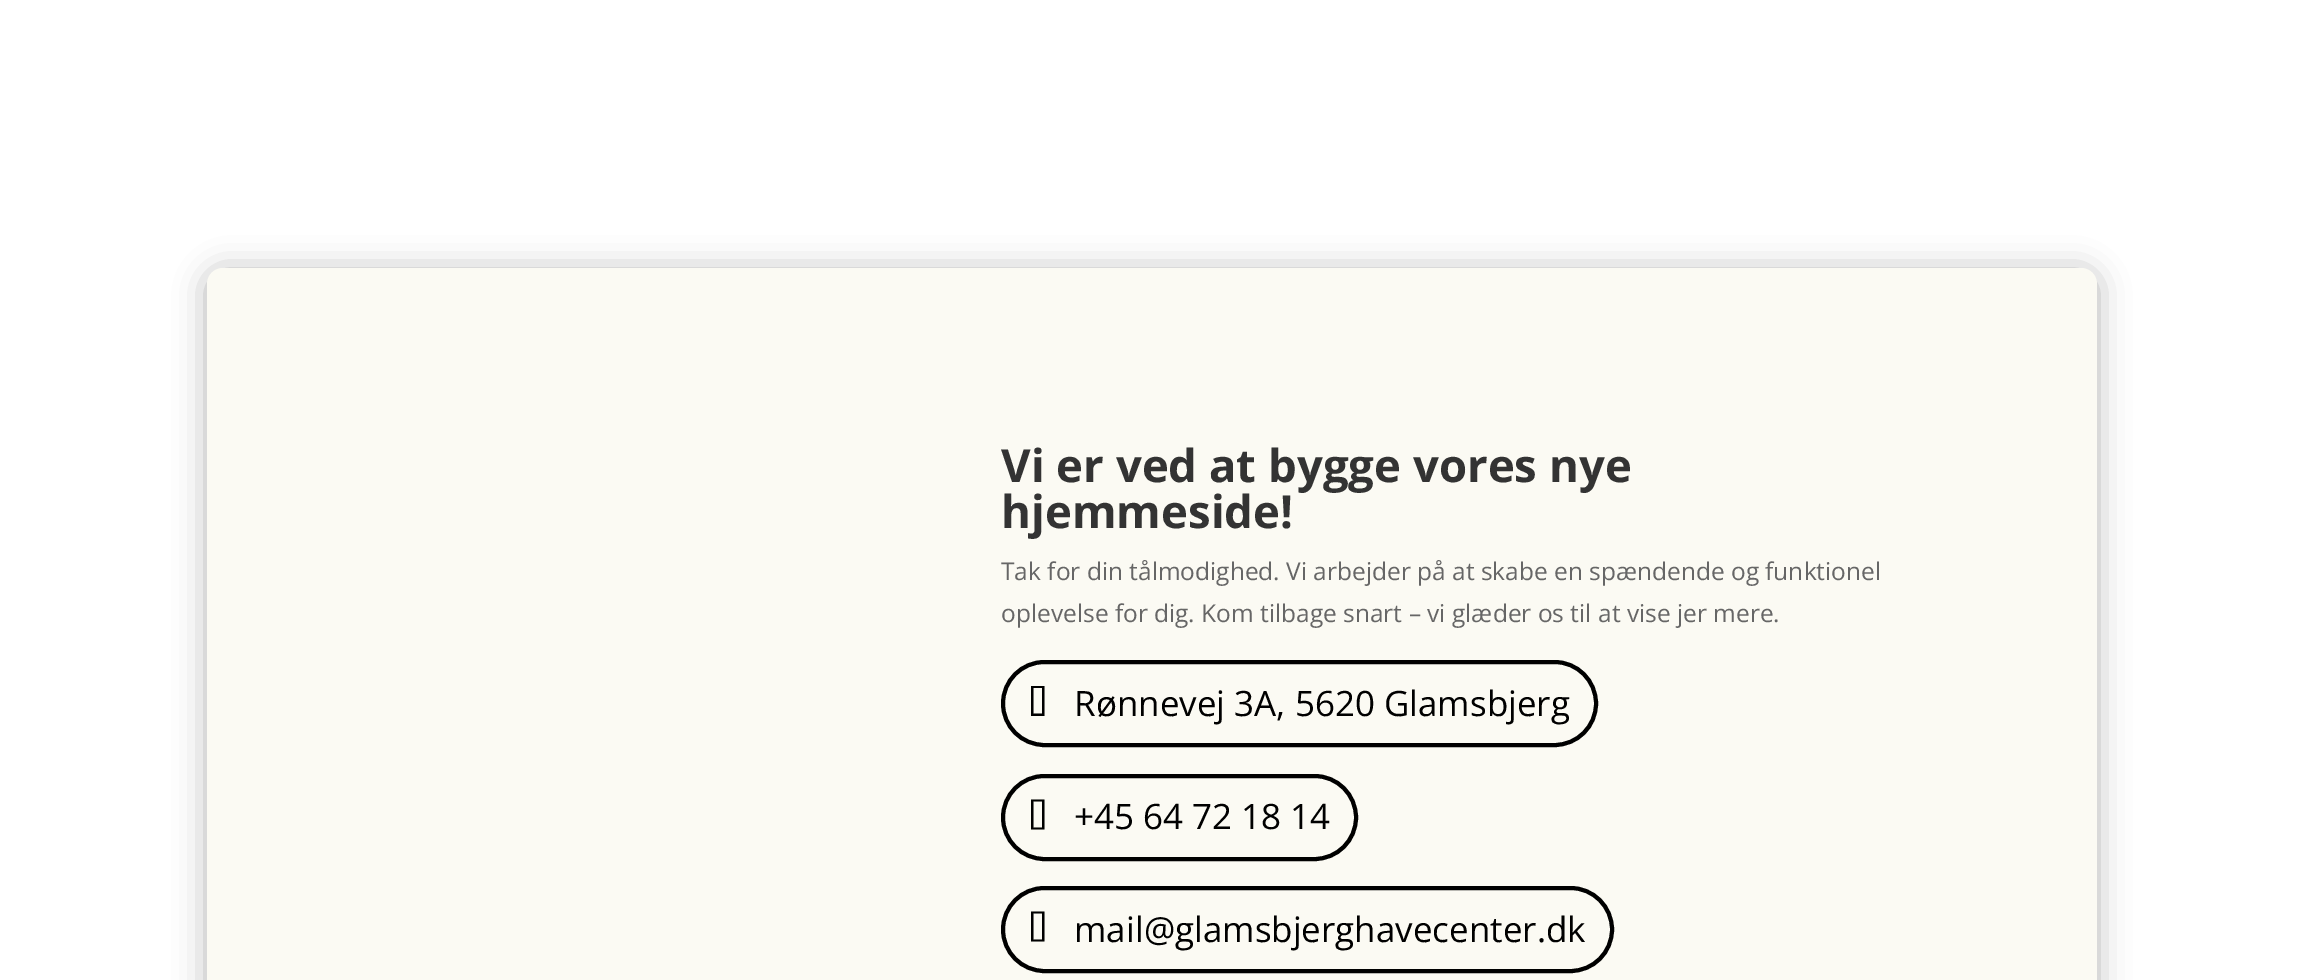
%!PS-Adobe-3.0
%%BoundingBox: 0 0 2302 980
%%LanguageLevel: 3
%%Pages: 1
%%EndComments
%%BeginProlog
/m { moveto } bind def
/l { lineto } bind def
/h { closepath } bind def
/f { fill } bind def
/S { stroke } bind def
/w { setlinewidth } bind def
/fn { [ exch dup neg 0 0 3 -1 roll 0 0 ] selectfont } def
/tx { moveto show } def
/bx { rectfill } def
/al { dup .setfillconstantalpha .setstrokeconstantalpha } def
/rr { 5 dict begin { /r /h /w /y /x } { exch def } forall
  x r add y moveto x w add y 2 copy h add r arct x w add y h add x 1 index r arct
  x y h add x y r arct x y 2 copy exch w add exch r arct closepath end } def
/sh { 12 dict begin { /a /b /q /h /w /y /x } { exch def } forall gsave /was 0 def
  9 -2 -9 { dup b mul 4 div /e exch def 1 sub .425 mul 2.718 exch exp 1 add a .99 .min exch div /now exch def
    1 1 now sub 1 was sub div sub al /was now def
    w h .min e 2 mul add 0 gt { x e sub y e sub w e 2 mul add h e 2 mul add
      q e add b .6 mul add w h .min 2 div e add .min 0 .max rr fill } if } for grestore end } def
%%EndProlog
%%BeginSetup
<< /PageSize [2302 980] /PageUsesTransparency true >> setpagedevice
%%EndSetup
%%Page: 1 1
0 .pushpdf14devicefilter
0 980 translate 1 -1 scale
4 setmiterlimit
1 setgray
0 0 2302 980 bx
0 setgray
207 271 1890 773 16 16 0.3 sh
0.984 0.98 0.953 setrgbcolor
207 268 1890 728 16 rr f
/OpenSans-Bold 45.5 fn
0.2 setgray
(Vi er ved at bygge vores nye) 1001 482 tx
(hjemmeside!) 1001 528 tx
/OpenSans-Regular 24.5 fn
0.4 setgray
(Tak for din tålmodighed. Vi arbejder på at skabe en spændende og funktionel) 1001 580 tx
(oplevelse for dig. Kom tilbage snart – vi glæder os til at vise jer mere.) 1001 622 tx
0 setgray
4 w
1003 662 593 83 41.5 rr S
1033.5 713.5 m 1033.5 688 l 1042 688 l 1042 713.5 l h 1031 716 m 1044.5 716 l 1044.5 686 l 1031 686 l h f
/OpenSans-Regular 35 fn
(Rønnevej 3A, 5620 Glamsbjerg) 1074 716 tx
1003 776 353 83 41.5 rr S
1033.5 827.5 m 1033.5 801.5 l 1042 801.5 l 1042 827.5 l h 1031 829.5 m 1044.5 829.5 l 1044.5 799.5 l 1031 799.5 l h f
(+45 64 72 18 14) 1074 829 tx
1003 888 609 83 41.5 rr S
1033.5 939.5 m 1033.5 913.5 l 1042 913.5 l 1042 939.5 l h 1031 941.5 m 1044.5 941.5 l 1044.5 911.5 l 1031 911.5 l h f
(mail@glamsbjerghavecenter.dk) 1074 942 tx
.poppdf14devicefilter showpage
%%EOF
